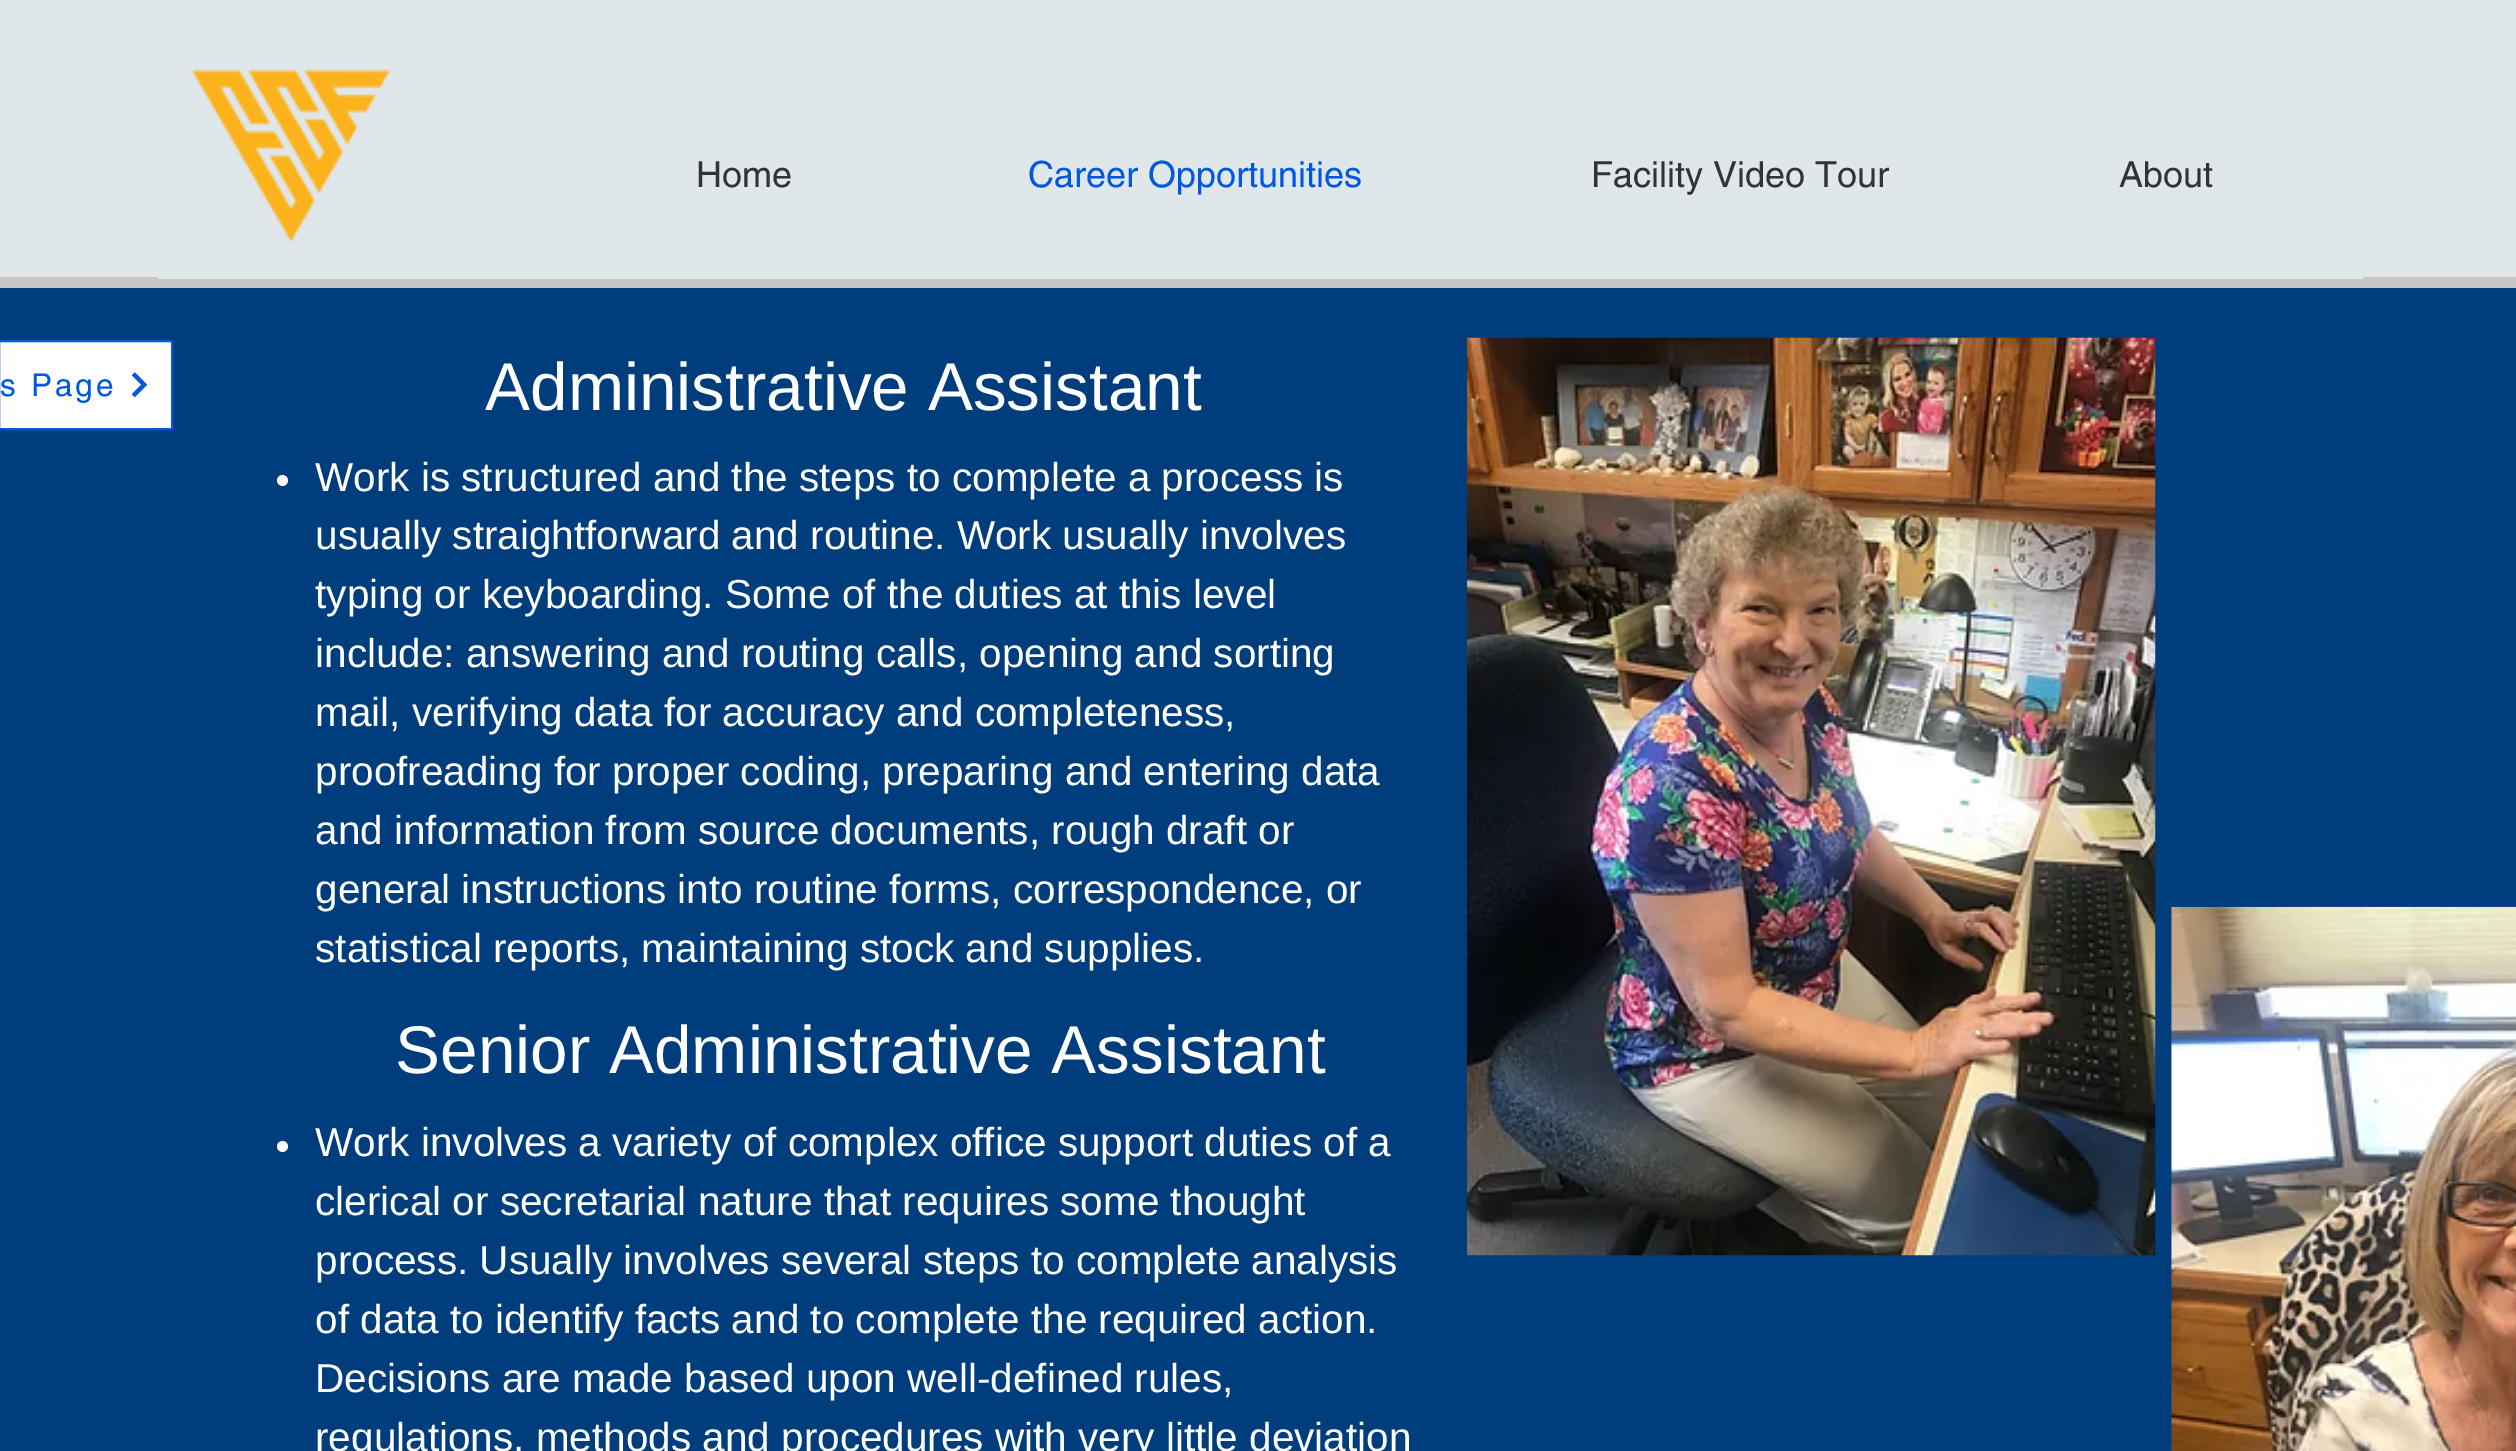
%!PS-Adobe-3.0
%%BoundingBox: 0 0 2516 1451
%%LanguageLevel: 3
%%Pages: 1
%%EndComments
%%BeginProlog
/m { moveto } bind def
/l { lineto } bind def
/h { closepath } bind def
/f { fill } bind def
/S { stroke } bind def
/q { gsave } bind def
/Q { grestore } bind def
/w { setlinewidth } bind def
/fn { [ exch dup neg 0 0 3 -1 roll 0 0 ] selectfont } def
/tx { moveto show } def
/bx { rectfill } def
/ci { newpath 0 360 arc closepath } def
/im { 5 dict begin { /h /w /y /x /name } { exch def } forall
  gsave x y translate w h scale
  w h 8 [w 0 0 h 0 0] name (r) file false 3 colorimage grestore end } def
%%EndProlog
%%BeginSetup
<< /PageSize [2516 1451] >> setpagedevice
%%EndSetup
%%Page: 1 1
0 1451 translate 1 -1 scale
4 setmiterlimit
0 0.239 0.49 setrgbcolor
0 0 2516 1451 bx
0.878 0.906 0.918 setrgbcolor
0 0 2516 277 bx
0.78 setgray
0 277 2516 11 bx
(image0.raw) 191 69 199 173 im
/helvetica-Regular 36 fn
0.2 setgray
(Home) 696 187 tx
0 0.341 0.882 setrgbcolor
(Career Opportunities) 1028 187 tx
0.2 setgray
(Facility Video Tour) 1591 187 tx
(About) 2119 187 tx
0.878 0.906 0.918 setrgbcolor
158 277 2205 2 bx
1 setgray
-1 341 m 172 341 l 172 429 l -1 429 l h q f Q
0 0.341 0.882 setrgbcolor
2 w
S
/helvetica-Regular 31.5 fn
0 396 m 3 0 (s Page) ashow
(image1.raw) 131 372 17 25 im
/LiberationSans-Regular 67.5 fn
1 setgray
(Administrative Assistant) 485 410 tx
(image2.raw) 1467 337 689 919 im
282.5 480.5 5.5 ci f
/LiberationSans-Regular 40.5 fn
(Work is structured and the steps to complete a process is) 315 491 tx
(usually straightforward and routine. Work usually involves) 315 549 tx
(typing or keyboarding. Some of the duties at this level) 315 608 tx
(include: answering and routing calls, opening and sorting) 315 667 tx
(mail, verifying data for accuracy and completeness,) 315 726 tx
(proofreading for proper coding, preparing and entering data) 315 785 tx
(and information from source documents, rough draft or) 315 844 tx
(general instructions into routine forms, correspondence, or) 315 903 tx
(statistical reports, maintaining stock and supplies.) 315 962 tx
/LiberationSans-Regular 67.5 fn
(Senior Administrative Assistant) 395 1073 tx
(image3.raw) 2171 906 345 545 im
282.5 1146.5 5.5 ci f
/LiberationSans-Regular 40.5 fn
(Work involves a variety of complex office support duties of a) 315 1156 tx
(clerical or secretarial nature that requires some thought) 315 1215 tx
(process. Usually involves several steps to complete analysis) 315 1274 tx
(of data to identify facts and to complete the required action.) 315 1333 tx
(Decisions are made based upon well-defined rules,) 315 1392 tx
(regulations, methods and procedures with very little deviation) 315 1451 tx
showpage
%%EOF
